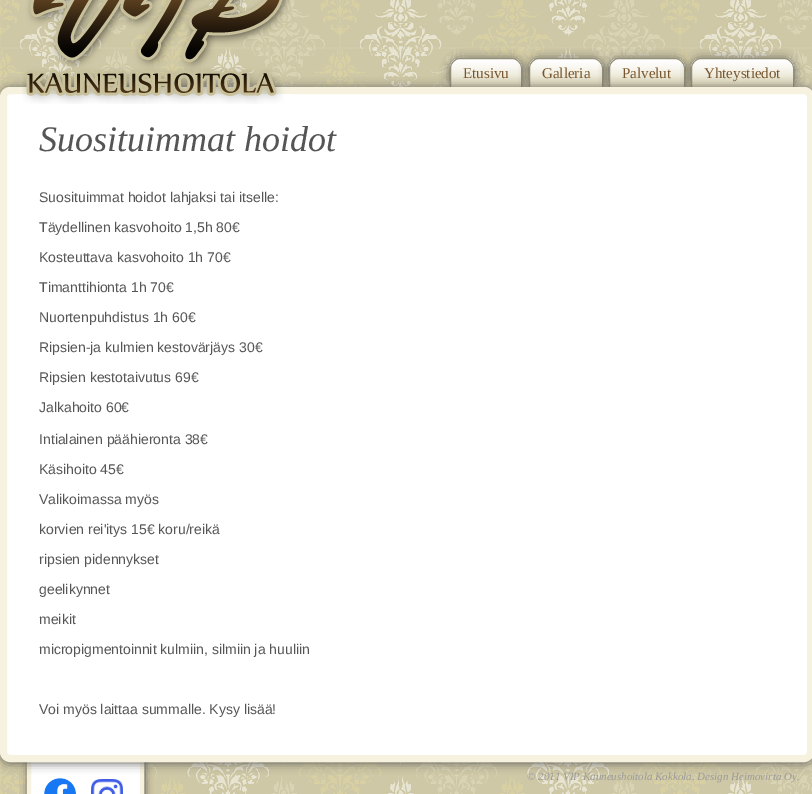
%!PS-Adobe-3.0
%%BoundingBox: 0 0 812 794
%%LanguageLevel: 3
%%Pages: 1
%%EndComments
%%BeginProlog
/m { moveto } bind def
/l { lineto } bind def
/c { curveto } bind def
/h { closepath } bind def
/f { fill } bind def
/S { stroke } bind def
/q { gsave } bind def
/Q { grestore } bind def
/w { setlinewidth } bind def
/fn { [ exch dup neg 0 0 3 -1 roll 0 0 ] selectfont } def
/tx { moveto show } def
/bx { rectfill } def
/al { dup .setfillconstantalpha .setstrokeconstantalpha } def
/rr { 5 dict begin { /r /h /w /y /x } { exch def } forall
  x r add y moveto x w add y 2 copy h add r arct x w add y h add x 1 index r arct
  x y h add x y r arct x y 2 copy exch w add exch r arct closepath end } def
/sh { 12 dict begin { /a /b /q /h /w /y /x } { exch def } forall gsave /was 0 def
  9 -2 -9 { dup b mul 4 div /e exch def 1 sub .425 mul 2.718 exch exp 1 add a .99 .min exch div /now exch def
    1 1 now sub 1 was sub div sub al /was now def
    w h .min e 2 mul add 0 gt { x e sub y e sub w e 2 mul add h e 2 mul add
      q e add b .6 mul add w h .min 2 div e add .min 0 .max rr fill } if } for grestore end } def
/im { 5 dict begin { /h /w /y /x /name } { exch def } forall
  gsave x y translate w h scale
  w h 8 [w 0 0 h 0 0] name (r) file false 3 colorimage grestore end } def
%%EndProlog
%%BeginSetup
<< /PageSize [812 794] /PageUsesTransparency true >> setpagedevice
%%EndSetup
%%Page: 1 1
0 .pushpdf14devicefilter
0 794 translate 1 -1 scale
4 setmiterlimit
1 setgray
0 0 812 794 bx
(image0.raw) 0 0 812 794 im
0.333 setgray
450 59 72 30 10 5 1 sh
(image2.raw) 450 59 72 28 im
0.584 0.565 0.467 setrgbcolor
460 58.5 m 512 58.5 l 517 58.5 521.5 63 521.5 68 c 521.5 87.5 l 450.5 87.5 l 450.5 68 l 450.5 63 455 58.5 460 58.5 c h S
0.333 setgray
529 59 74 30 10 5 1 sh
(image3.raw) 529 59 74 28 im
0.584 0.565 0.467 setrgbcolor
539 58.5 m 593 58.5 l 598 58.5 602.5 63 602.5 68 c 602.5 87.5 l 529.5 87.5 l 529.5 68 l 529.5 63 534 58.5 539 58.5 c h S
0.333 setgray
609 59 76 30 10 5 1 sh
(image4.raw) 609 59 76 28 im
0.584 0.565 0.467 setrgbcolor
619 58.5 m 675 58.5 l 680 58.5 684.5 63 684.5 68 c 684.5 87.5 l 609.5 87.5 l 609.5 68 l 609.5 63 614 58.5 619 58.5 c h S
0.333 setgray
691 59 103 30 10 5 1 sh
(image5.raw) 691 59 103 28 im
0.584 0.565 0.467 setrgbcolor
701 58.5 m 784 58.5 l 789 58.5 793.5 63 793.5 68 c 793.5 87.5 l 691.5 87.5 l 691.5 68 l 691.5 63 696 58.5 701 58.5 c h S
0.31 setgray
28 751 117 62 7 4 1 sh
1 setgray
31 762 109 32 bx
0.965 0.949 0.875 setrgbcolor
4 w
29 751 113 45 rectstroke
(image6.raw) 44 778 32 16 im
0.333 setgray
0 88 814 675 10 5 1 sh
1 setgray
3.5 90.5 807 668 6.5 rr q f Q
0.965 0.949 0.875 setrgbcolor
7 w
S
(image1.raw) 22 0 269 104 im
/LiberationSerif-Regular 15 fn
0.471 0.333 0.173 setrgbcolor
(Etusivu) 463 78 tx
(Galleria) 542 78 tx
(Palvelut) 622 78 tx
(Yhteystiedot) 704 78 tx
/LiberationSerif-Italic 36 fn
0.333 setgray
(Suosituimmat hoidot) 39 151 tx
/LiberationSans-Regular 14 fn
(Suosituimmat hoidot lahjaksi tai itselle:) 39 202 tx
(Täydellinen kasvohoito 1,5h 80€) 39 232 tx
(Kosteuttava kasvohoito 1h 70€) 39 262 tx
(Timanttihionta 1h 70€) 39 292 tx
(Nuortenpuhdistus 1h 60€) 39 322 tx
(Ripsien-ja kulmien kestovärjäys 30€) 39 352 tx
(Ripsien kestotaivutus 69€) 39 382 tx
(Jalkahoito 60€) 39 412 tx
(Intialainen päähieronta 38€) 39 444 tx
(Käsihoito 45€) 39 474 tx
(Valikoimassa myös) 39 504 tx
(korvien rei'itys 15€ koru/reikä) 39 534 tx
(ripsien pidennykset) 39 564 tx
(geelikynnet) 39 594 tx
(meikit) 39 624 tx
(micropigmentoinnit kulmiin, silmiin ja huuliin) 39 654 tx
(Voi myös laittaa summalle. Kysy lisää!) 39 714 tx
(image7.raw) 91 779 32 15 im
/LiberationSerif-Italic 11 fn
0.6 setgray
(© 2011 VIP Kauneushoitola Kokkola. Design Heimovirta Oy.) 527 780 tx
.poppdf14devicefilter showpage
%%EOF
